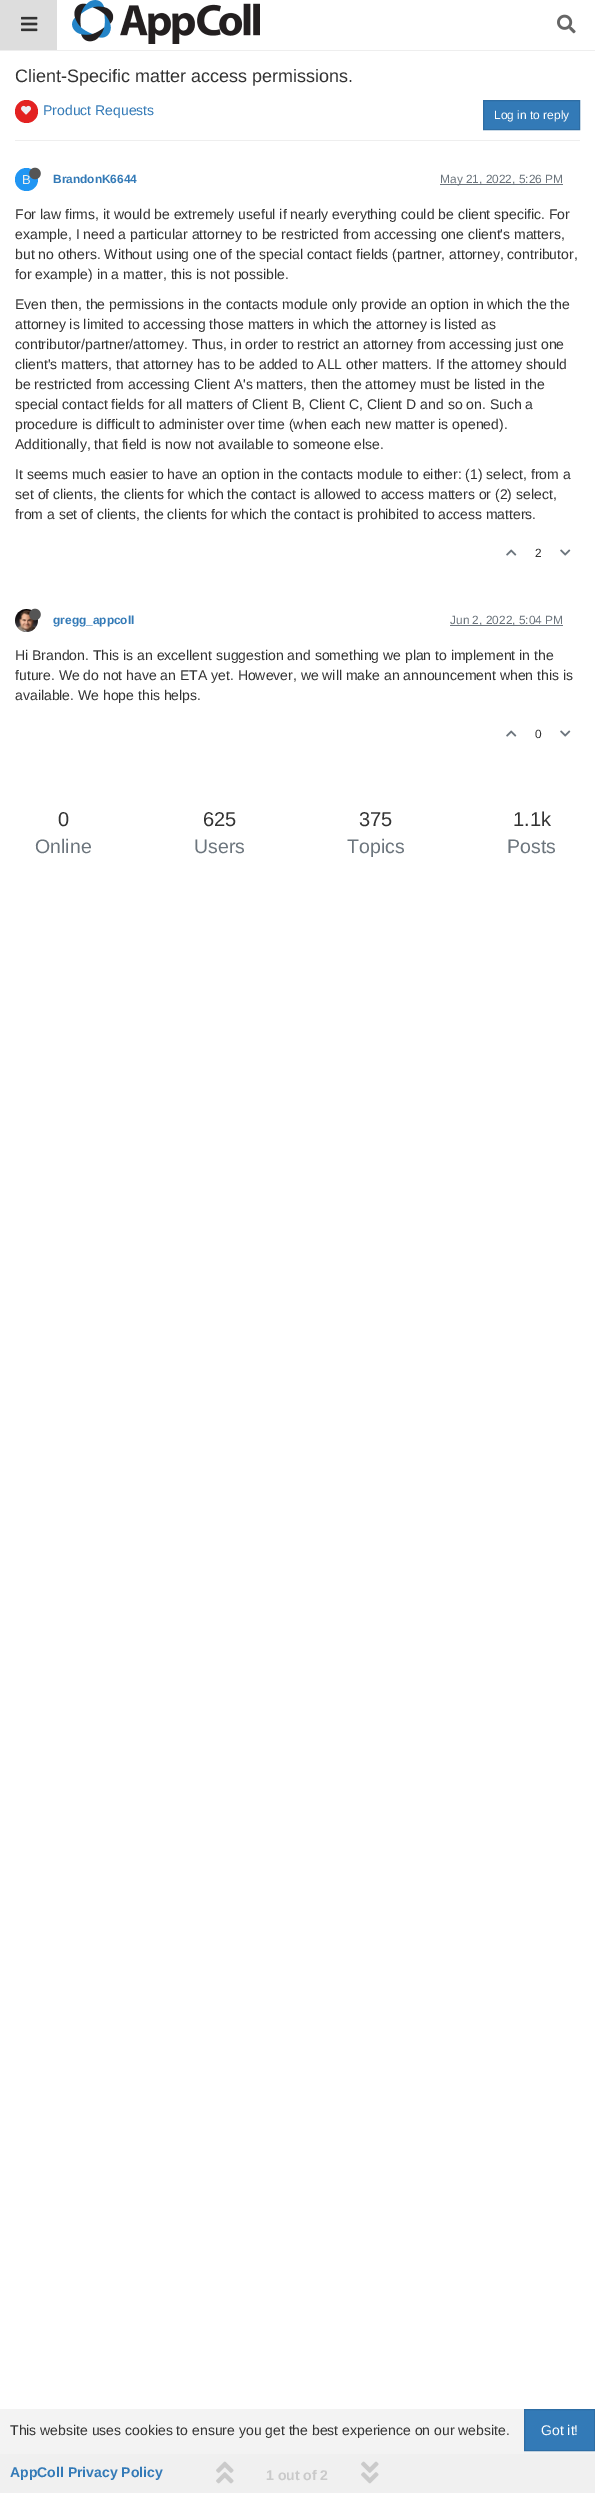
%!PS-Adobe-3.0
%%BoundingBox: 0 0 595 2493
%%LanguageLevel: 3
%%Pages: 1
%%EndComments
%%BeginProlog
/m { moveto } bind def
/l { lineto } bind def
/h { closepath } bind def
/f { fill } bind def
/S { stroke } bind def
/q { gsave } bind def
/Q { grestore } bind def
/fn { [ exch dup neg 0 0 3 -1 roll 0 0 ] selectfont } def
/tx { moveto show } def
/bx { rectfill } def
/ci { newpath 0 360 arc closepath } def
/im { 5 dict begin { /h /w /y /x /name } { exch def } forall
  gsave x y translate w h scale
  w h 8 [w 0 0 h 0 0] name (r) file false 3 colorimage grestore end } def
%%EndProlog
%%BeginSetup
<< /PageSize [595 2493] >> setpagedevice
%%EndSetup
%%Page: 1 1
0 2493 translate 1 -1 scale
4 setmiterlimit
1 setgray
0 0 595 2493 bx
0.953 setgray
0 2409 595 45 bx
0.933 setgray
0 50 595 1 bx
0.867 setgray
0 0 57 50 bx
(image0.raw) 21 16 17 16 im
(image1.raw) 72 0 188 44 im
(image2.raw) 557 14 19 20 im
/LiberationSans-Regular 18 fn
0.2 setgray
(Client-Specific matter access permissions.) 15 82 tx
0.933 setgray
15 140 565 1 bx
0.89 0.133 0.133 setrgbcolor
26.5 111.5 11.5 ci f
(image3.raw) 21 105 10 10 im
/LiberationSans-Regular 14 fn
0.2 0.478 0.718 setrgbcolor
(Product Requests) 43 115 tx
483.5 100.5 m 579.5 100.5 l 579.5 129.5 l 483.5 129.5 l h q f Q
0.18 0.427 0.643 setrgbcolor
S
/LiberationSans-Regular 12 fn
1 setgray
(Log in to reply) 494 119 tx
0.129 0.588 0.953 setrgbcolor
26.5 179.5 11.5 ci f
/LiberationSans-Regular 13 fn
0.933 setgray
(B) 22 184 tx
(image4.raw) 29 167 12 13 im
/LiberationSans-Bold 11.9 fn
0.2 0.478 0.718 setrgbcolor
(BrandonK6644) 53 183 tx
0.424 0.459 0.49 setrgbcolor
440 184 123 1 bx
/LiberationSans-Regular 11.9 fn
(May 21, 2022, 5:26 PM) 440 183 tx
/LiberationSans-Regular 14 fn
0.2 setgray
(For law firms, it would be extremely useful if nearly everything could be client specific. For) 15 219 tx
(example, I need a particular attorney to be restricted from accessing one client's matters,) 15 239 tx
(but no others. Without using one of the special contact fields \(partner, attorney, contributor,) 15 259 tx
(for example\) in a matter, this is not possible.) 15 279 tx
(Even then, the permissions in the contacts module only provide an option in which the the) 15 309 tx
(attorney is limited to accessing those matters in which the attorney is listed as) 15 329 tx
(contributor/partner/attorney. Thus, in order to restrict an attorney from accessing just one) 15 349 tx
(client's matters, that attorney has to be added to ALL other matters. If the attorney should) 15 369 tx
(be restricted from accessing Client A's matters, then the attorney must be listed in the) 15 389 tx
(special contact fields for all matters of Client B, Client C, Client D and so on. Such a) 15 409 tx
(procedure is difficult to administer over time \(when each new matter is opened\).) 15 429 tx
(Additionally, that field is now not available to someone else.) 15 449 tx
(It seems much easier to have an option in the contacts module to either: \(1\) select, from a) 15 479 tx
(set of clients, the clients for which the contact is allowed to access matters or \(2\) select,) 15 499 tx
(from a set of clients, the clients for which the contact is prohibited to access matters.) 15 519 tx
(image5.raw) 506 549 11 7 im
/LiberationSans-Regular 11.9 fn
(2) 535 557 tx
(image6.raw) 560 549 11 7 im
(image8.raw) 15 609 23 23 im
(image7.raw) 29 608 12 13 im
/LiberationSans-Bold 11.9 fn
0.2 0.478 0.718 setrgbcolor
(gregg_appcoll) 53 624 tx
0.424 0.459 0.49 setrgbcolor
450 625 113 1 bx
/LiberationSans-Regular 11.9 fn
(Jun 2, 2022, 5:04 PM) 450 624 tx
/LiberationSans-Regular 14 fn
0.2 setgray
(Hi Brandon. This is an excellent suggestion and something we plan to implement in the) 15 660 tx
(future. We do not have an ETA yet. However, we will make an announcement when this is) 15 680 tx
(available. We hope this helps.) 15 700 tx
(image5.raw) 506 730 11 7 im
/LiberationSans-Regular 11.9 fn
(0) 535 738 tx
(image6.raw) 560 730 11 7 im
0.941 setgray
0 2454 595 39 bx
(image9.raw) 216 2461 18 23 im
/LiberationSans-Bold 14 fn
0.792 setgray
(1 out of 2) 266 2480 tx
(image10.raw) 361 2461 18 23 im
/LiberationSans-Regular 20 fn
0.2 setgray
(0) 58 826 tx
/LiberationSans-Regular 19.5 fn
0.424 0.459 0.49 setrgbcolor
(Online) 35 853 tx
/LiberationSans-Regular 20 fn
0.2 setgray
(625) 203 826 tx
/LiberationSans-Regular 19.5 fn
0.424 0.459 0.49 setrgbcolor
(Users) 194 853 tx
/LiberationSans-Regular 20 fn
0.2 setgray
(375) 359 826 tx
/LiberationSans-Regular 19.5 fn
0.424 0.459 0.49 setrgbcolor
(Topics) 347 853 tx
/LiberationSans-Regular 20 fn
0.2 setgray
(1.1k) 513 826 tx
/LiberationSans-Regular 19.5 fn
0.424 0.459 0.49 setrgbcolor
(Posts) 507 853 tx
/LiberationSans-Regular 14 fn
0.2 setgray
(This website uses cookies to ensure you get the best experience on our website.) 10 2435 tx
0.2 0.478 0.718 setrgbcolor
524.5 2409.5 m 594.5 2409.5 l 594.5 2450.5 l 524.5 2450.5 l h q f Q
0.18 0.427 0.643 setrgbcolor
S
1 setgray
(Got it!) 541 2435 tx
/LiberationSans-Bold 14 fn
0.2 0.478 0.718 setrgbcolor
(AppColl Privacy Policy) 10 2477 tx
showpage
%%EOF
